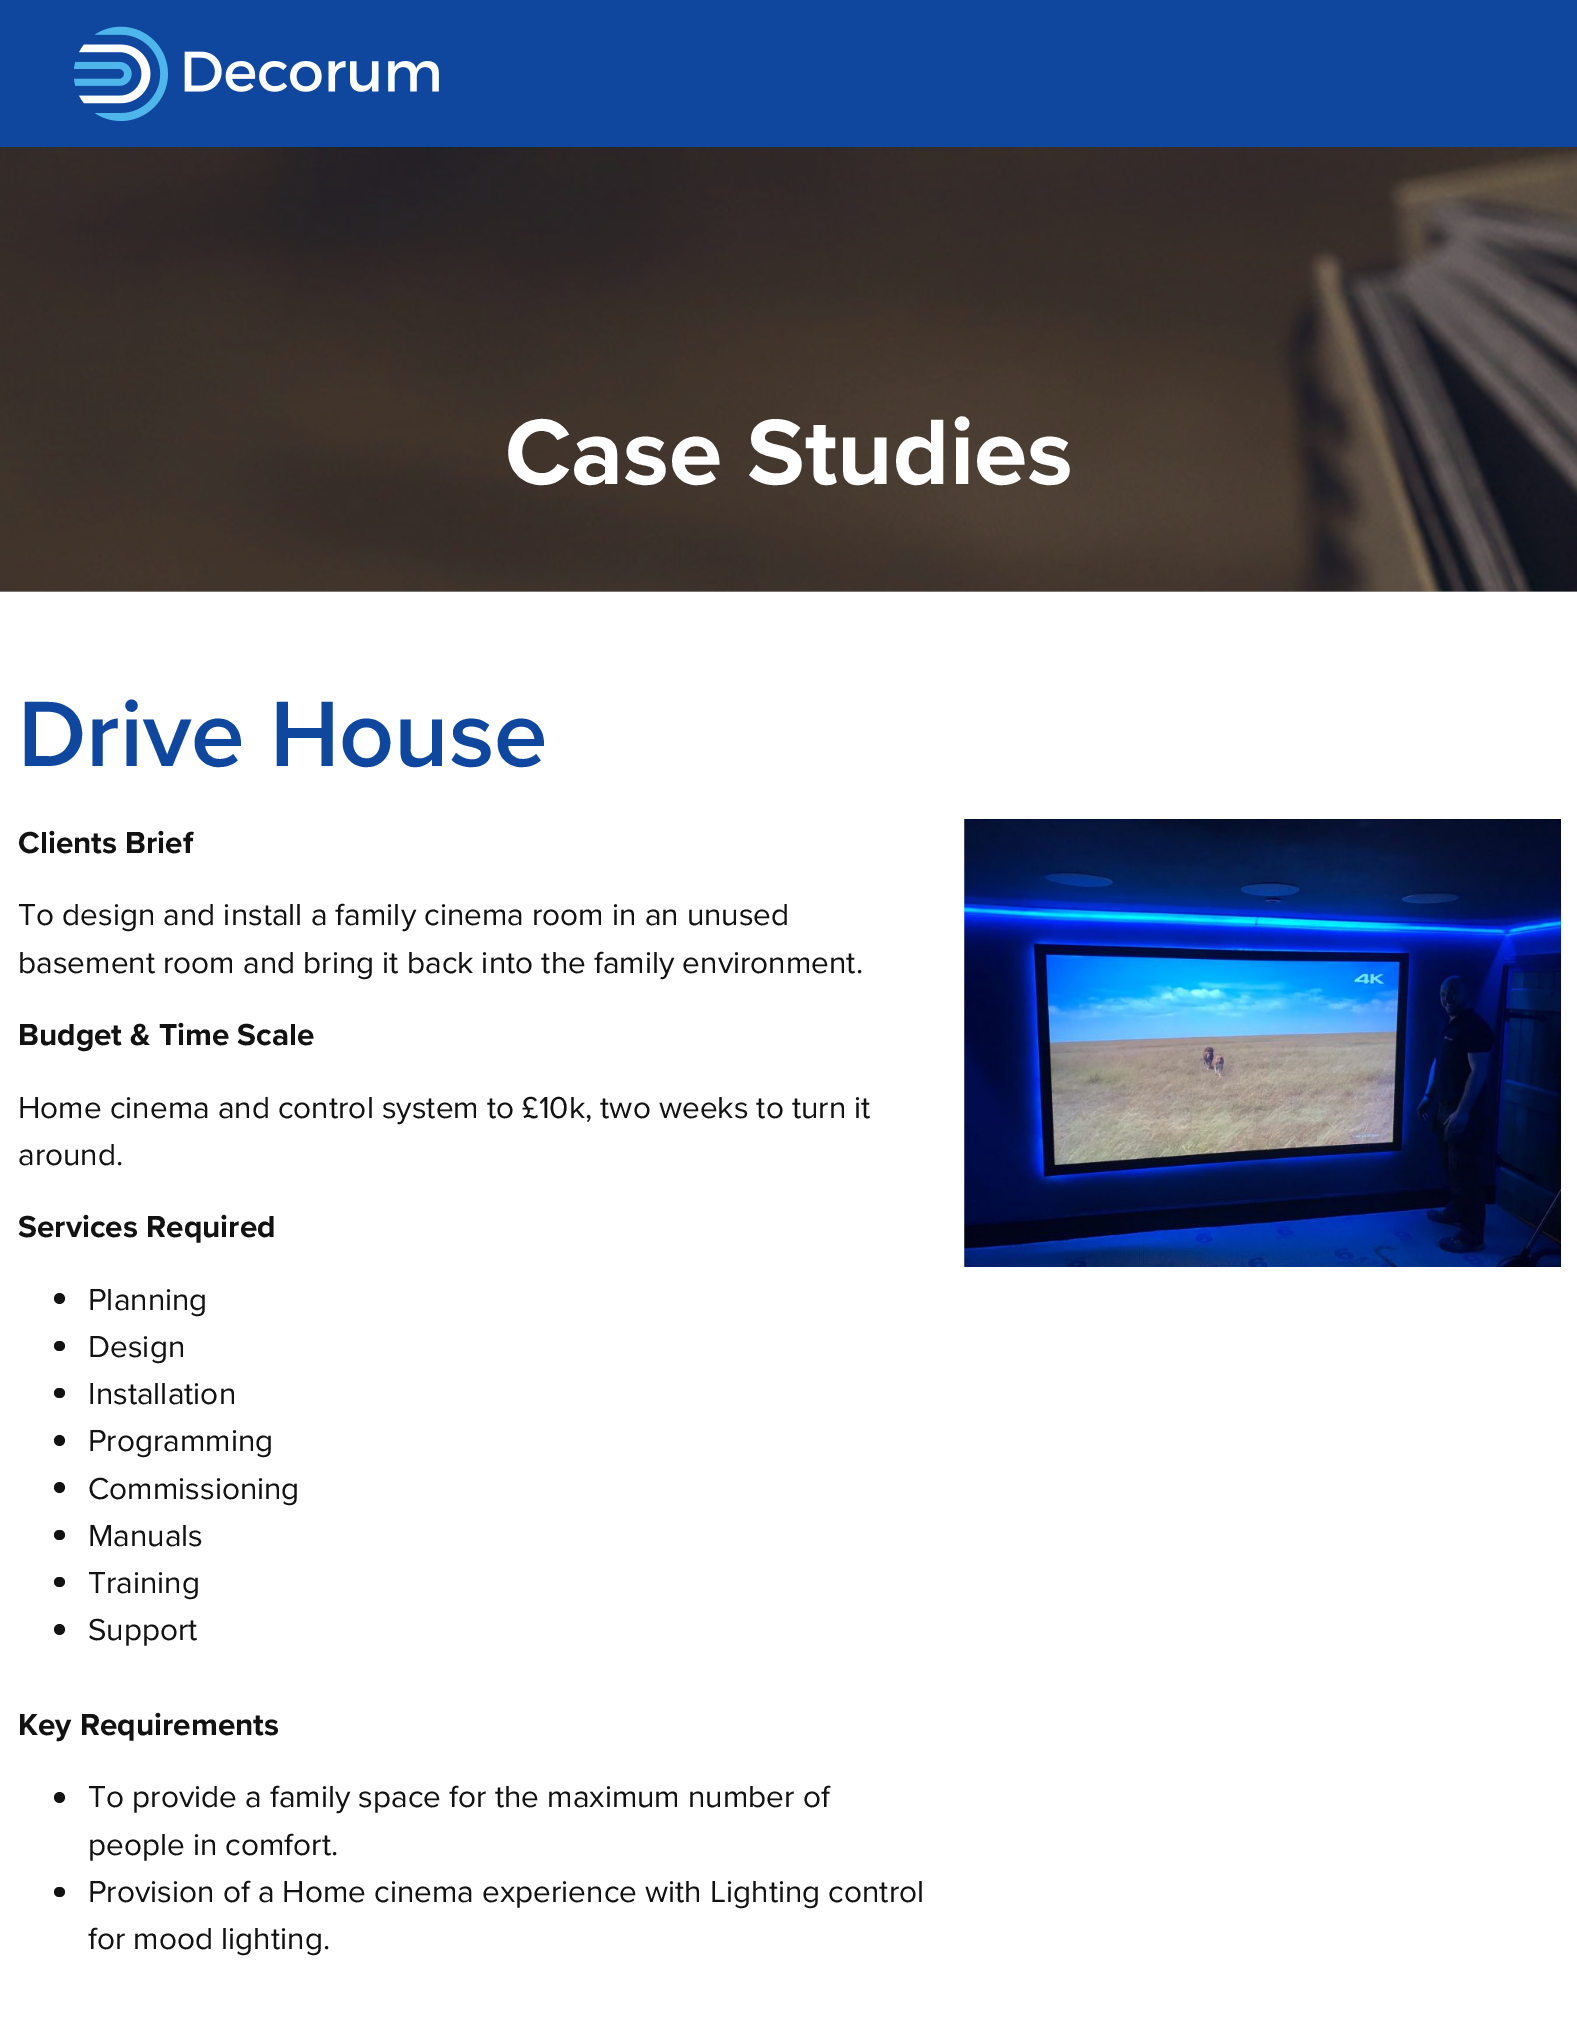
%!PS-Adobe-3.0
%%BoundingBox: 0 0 1577 2023
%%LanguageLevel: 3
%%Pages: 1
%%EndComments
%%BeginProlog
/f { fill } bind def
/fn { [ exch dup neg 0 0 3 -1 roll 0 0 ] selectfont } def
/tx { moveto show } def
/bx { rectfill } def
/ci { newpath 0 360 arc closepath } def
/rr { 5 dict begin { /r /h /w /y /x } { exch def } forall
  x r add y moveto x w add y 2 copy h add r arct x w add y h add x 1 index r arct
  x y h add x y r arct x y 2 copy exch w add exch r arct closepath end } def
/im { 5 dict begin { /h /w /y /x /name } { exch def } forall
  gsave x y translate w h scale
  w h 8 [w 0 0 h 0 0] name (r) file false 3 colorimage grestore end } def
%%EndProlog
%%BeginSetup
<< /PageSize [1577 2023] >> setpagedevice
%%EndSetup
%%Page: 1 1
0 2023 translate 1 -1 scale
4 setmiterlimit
1 setgray
0 0 1577 2023 bx
0.722 setgray
0 591 1577 1 bx
0.063 0.278 0.62 setrgbcolor
0 0 1577 147 bx
(image0.raw) 74 26 365 95 im
(image1.raw) 0 147 1577 445 im
/ProximaNova-Bold 96.25 fn
1 setgray
(Case Studies) 505 484 tx
/ProximaNova-SemiBold 96.25 fn
0.063 0.278 0.62 setrgbcolor
(Drive House) 18 766 tx
/ProximaNova-Bold 31.5 fn
0.071 setgray
(Clients Brief) 18 853 tx
/ProximaNova-Regular 31.5 fn
(To design and install a family cinema room in an unused) 18 925 tx
(basement room and bring it back into the family environment.) 18 973 tx
/ProximaNova-Bold 31.5 fn
(Budget & Time Scale) 18 1045 tx
/ProximaNova-Regular 31.5 fn
(Home cinema and control system to £10k, two weeks to turn it) 18 1118 tx
(around.) 18 1165 tx
/ProximaNova-Bold 31.5 fn
(Services Required) 18 1237 tx
59.5 1298.5 5.5 ci f
/ProximaNova-Regular 31.5 fn
(Planning) 88 1310 tx
54 1341 11 10 5 rr f
(Design) 88 1357 tx
54 1388 11 10 5 rr f
(Installation) 88 1404 tx
59.5 1440.5 5.5 ci f
(Programming) 88 1451 tx
59.5 1487.5 5.5 ci f
(Commissioning) 88 1499 tx
54 1530 11 10 5 rr f
(Manuals) 88 1546 tx
54 1577 11 10 5 rr f
(Training) 88 1593 tx
59.5 1629.5 5.5 ci f
(Support) 88 1640 tx
/ProximaNova-Bold 31.5 fn
(Key Requirements) 18 1735 tx
59.5 1797.5 5.5 ci f
/ProximaNova-Regular 31.5 fn
(To provide a family space for the maximum number of) 88 1807 tx
(people in comfort.) 88 1855 tx
54 1887 11 10 5 rr f
(Provision of a Home cinema experience with Lighting control) 88 1902 tx
(for mood lighting.) 88 1949 tx
(image2.raw) 964 819 597 448 im
showpage
%%EOF
